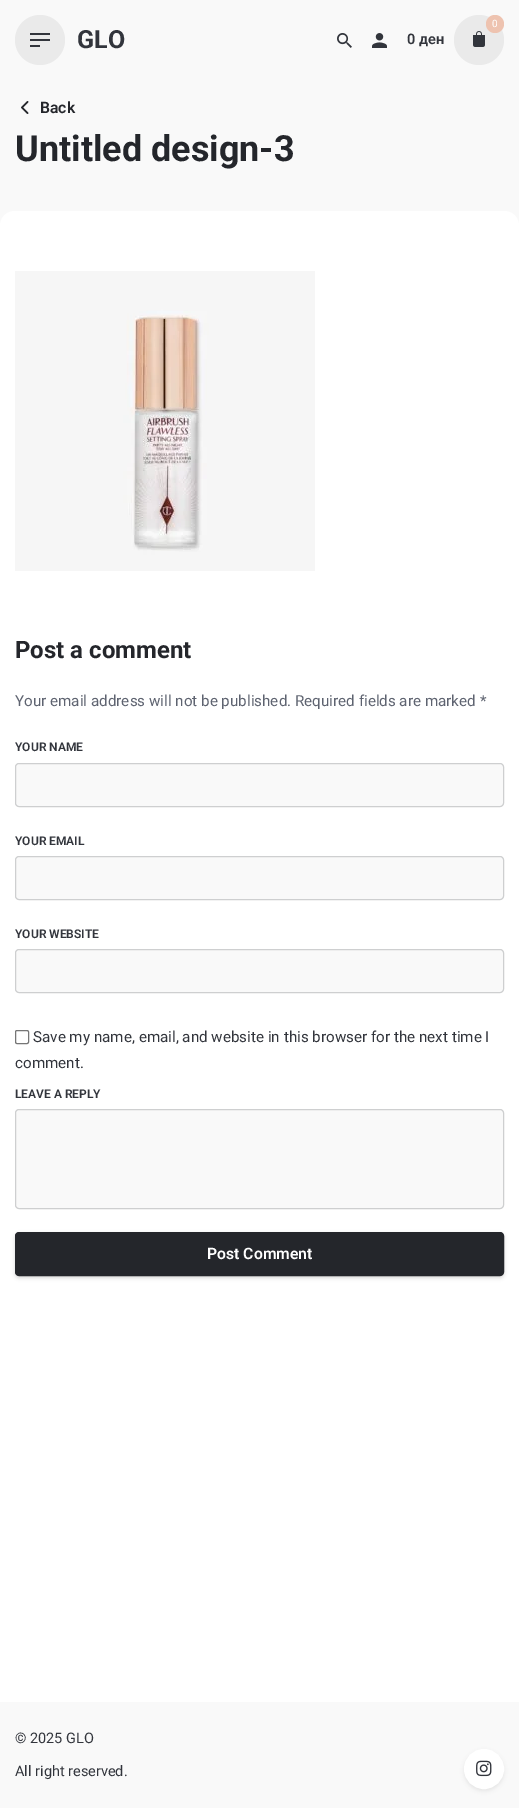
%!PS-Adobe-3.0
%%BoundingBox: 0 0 519 1809
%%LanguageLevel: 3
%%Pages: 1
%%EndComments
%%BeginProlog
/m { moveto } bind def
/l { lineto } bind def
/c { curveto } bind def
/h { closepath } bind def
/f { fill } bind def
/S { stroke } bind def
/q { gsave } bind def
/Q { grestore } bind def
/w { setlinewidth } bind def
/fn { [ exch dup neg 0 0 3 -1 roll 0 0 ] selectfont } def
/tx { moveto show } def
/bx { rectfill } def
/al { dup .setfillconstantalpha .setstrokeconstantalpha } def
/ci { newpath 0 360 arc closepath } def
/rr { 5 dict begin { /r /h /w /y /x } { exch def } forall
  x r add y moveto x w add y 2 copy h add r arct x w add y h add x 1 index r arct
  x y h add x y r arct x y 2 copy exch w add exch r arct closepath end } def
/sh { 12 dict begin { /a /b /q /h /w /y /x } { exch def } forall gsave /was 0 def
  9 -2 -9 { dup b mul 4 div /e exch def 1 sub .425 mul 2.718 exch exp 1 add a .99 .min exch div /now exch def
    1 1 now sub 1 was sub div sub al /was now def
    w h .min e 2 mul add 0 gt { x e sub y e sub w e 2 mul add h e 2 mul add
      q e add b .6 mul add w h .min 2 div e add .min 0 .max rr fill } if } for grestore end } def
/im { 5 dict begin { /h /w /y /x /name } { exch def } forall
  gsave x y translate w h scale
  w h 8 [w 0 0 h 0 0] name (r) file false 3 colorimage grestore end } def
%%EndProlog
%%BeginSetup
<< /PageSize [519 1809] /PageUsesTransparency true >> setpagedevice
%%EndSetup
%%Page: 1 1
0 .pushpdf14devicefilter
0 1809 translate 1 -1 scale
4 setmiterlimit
1 setgray
0 0 519 1809 bx
0.976 setgray
0 0 519 226 bx
0.918 setgray
40 40 25 ci f
0.196 0.208 0.235 setrgbcolor
30 33 20 2 bx
30 39 20 2 bx
30 45 10 2 bx
/Roboto-Bold 25 fn
(GLO) 77 48 tx
(image0.raw) 337 33 15 15 im
(image1.raw) 372 33 15 15 im
0.918 setgray
479 40 25 ci f
0.933 0.765 0.69 setrgbcolor
495 24 9 ci f
/Roboto-Regular 10 fn
1 setgray
(0) 492 27 tx
(image2.raw) 473 31 12 16 im
/Roboto-SemiBold 14.5 fn
0.196 0.208 0.235 setrgbcolor
(0 ден) 407 44 tx
(image3.raw) 21 101 8 13 im
/Roboto-SemiBold 15.75 fn
0.141 0.149 0.169 setrgbcolor
(Back) 40 113 tx
/Roboto-Bold 36 fn
(Untitled design-3) 15 161 tx
1 setgray
15 211 m 504 211 l 512.5 211 519 217.5 519 226 c 0 226 l 0 217.5 6.5 211 15 211 c h f
(image4.raw) 15 271 300 300 im
/Roboto-Bold 24 fn
0.141 0.149 0.169 setrgbcolor
(Post a comment) 15 658 tx
/Roboto-Regular 15.2 fn
0.369 0.388 0.439 setrgbcolor
(Your email address will not be published. Required fields are marked *) 15 706 tx
/Roboto-SemiBold 12 fn
0.196 0.208 0.235 setrgbcolor
(YOUR NAME) 15 751 tx
0.976 setgray
15.5 763.5 488 43 3.5 rr q f Q
0.808 0.812 0.816 setrgbcolor
S
0.196 0.208 0.235 setrgbcolor
(YOUR EMAIL) 15 845 tx
0.976 setgray
15.5 856.5 488 43 3.5 rr q f Q
0.808 0.812 0.816 setrgbcolor
S
0.196 0.208 0.235 setrgbcolor
(YOUR WEBSITE) 15 938 tx
0.976 setgray
15.5 949.5 488 43 3.5 rr q f Q
0.808 0.812 0.816 setrgbcolor
S
0.463 setgray
15.5 1030.5 13 13 1.5 rr S
/Roboto-Regular 15.2 fn
0.196 0.208 0.235 setrgbcolor
(Save my name, email, and website in this browser for the next time I) 33 1042 tx
(comment.) 15 1068 tx
/Roboto-SemiBold 12 fn
(LEAVE A REPLY) 15 1098 tx
0.976 setgray
15.5 1109.5 488 99 3.5 rr q f Q
0.808 0.812 0.816 setrgbcolor
S
0 setgray
15 1234 489 44 4 2 0.15 sh
0.141 0.149 0.169 setrgbcolor
16 1233 487 42 3 rr q f Q
2 w
S
/Roboto-SemiBold 15.75 fn
1 setgray
(Post Comment) 207 1259 tx
0.976 setgray
0 1702 519 106 bx
/Roboto-Regular 14.5 fn
0.196 0.208 0.235 setrgbcolor
(© 2025 GLO) 15 1743 tx
(All right reserved.) 15 1776 tx
0 setgray
464 1751 40 40 20 2 0.07 sh
1 setgray
484 1769 19 ci q f Q
S
(image5.raw) 476 1760 16 17 im
.poppdf14devicefilter showpage
%%EOF
